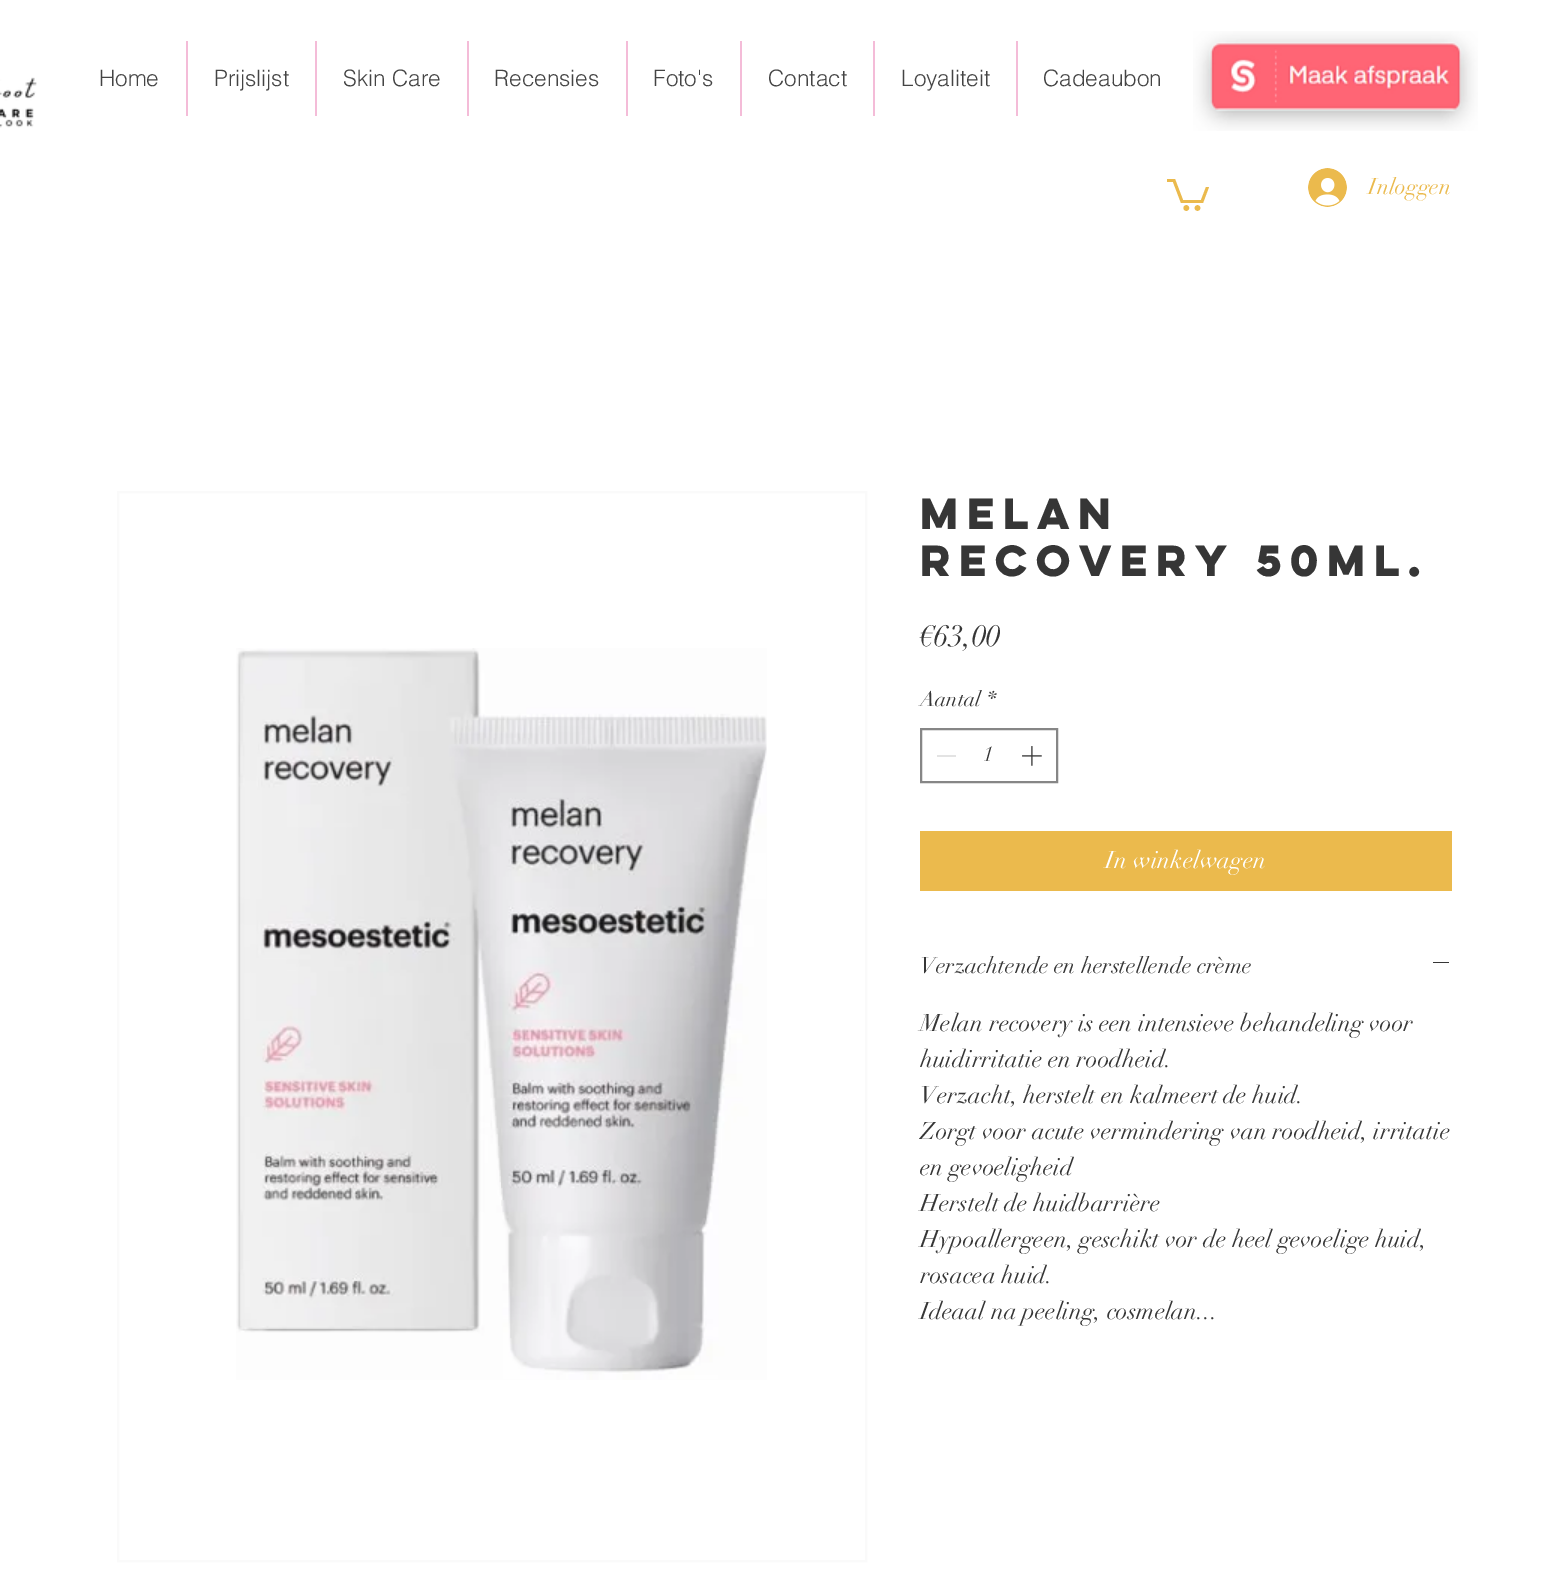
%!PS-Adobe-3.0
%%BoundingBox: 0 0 1568 1596
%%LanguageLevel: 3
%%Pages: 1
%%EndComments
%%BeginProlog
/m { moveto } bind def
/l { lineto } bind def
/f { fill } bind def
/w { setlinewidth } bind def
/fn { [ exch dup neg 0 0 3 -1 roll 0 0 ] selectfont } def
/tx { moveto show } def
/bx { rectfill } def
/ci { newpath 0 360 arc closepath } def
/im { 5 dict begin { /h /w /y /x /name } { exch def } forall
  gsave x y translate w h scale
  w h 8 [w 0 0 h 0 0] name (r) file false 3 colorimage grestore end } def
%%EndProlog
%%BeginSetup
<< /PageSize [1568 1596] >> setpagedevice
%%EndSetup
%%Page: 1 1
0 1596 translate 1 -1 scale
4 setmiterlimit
1 setgray
0 0 1568 1596 bx
(image0.raw) 0 77 37 51 im
/helvetica-Light 22.5 fn
0.267 setgray
(Home) 99 86 tx
0.957 0.737 0.847 setrgbcolor
186 41 2 75 bx
0.267 setgray
(Prijslijst) 214 86 tx
0.957 0.737 0.847 setrgbcolor
315 41 2 75 bx
0.267 setgray
(Skin Care) 343 86 tx
0.957 0.737 0.847 setrgbcolor
467 41 2 75 bx
0.267 setgray
(Recensies) 494 86 tx
0.957 0.737 0.847 setrgbcolor
626 41 2 75 bx
0.267 setgray
(Foto's) 653 86 tx
0.957 0.737 0.847 setrgbcolor
740 41 2 75 bx
0.267 setgray
(Contact) 768 86 tx
0.957 0.737 0.847 setrgbcolor
873 41 2 75 bx
0.267 setgray
(Loyaliteit) 901 86 tx
0.957 0.737 0.847 setrgbcolor
1016 41 2 75 bx
0.267 setgray
(Cadeaubon) 1043 86 tx
(image1.raw) 1193 31 285 100 im
0.922 0.729 0.302 setrgbcolor
1209 187 m 1203 203 l 1181 203 l 1173 182 l 1167 182 l 1167 179 l 1175 179 l 1183 200 l 1201 200 l 1206 187 l f
1197.5 208 2.8 ci f
1186.3 208 2.8 ci f
(image2.raw) 1308 168 39 39 im
/didot-Regular 22.5 fn
(Inloggen) 1368 194 tx
0.98 setgray
2 w
118 492 748 1069 rectstroke
(image3.raw) 236 648 531 732 im
/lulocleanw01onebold-Bold 39 fn
0.212 setgray
(Melan) 920 529 tx
(recovery 50ml.) 920 576 tx
/didot-Regular 30 fn
(€63,00) 920 646 tx
/didot-Regular 21 fn
(Aantal) 920 706 tx
(*) 987 706 tx
0.525 setgray
921 729 136 53 rectstroke
0.89 setgray
937 755 19 2 bx
0.212 setgray
(1) 983 761 tx
(image4.raw) 1022 746 20 20 im
0.922 0.729 0.302 setrgbcolor
920 831 532 60 bx
/didot-Regular 24 fn
1 setgray
(In winkelwagen) 1105 868 tx
/didot-Regular 22.5 fn
0.212 setgray
(Verzachtende en herstellende crème) 920 973 tx
1433 962 16 1 bx
/didot-Regular 24 fn
(Melan recovery is een intensieve behandeling voor) 920 1031 tx
(huidirritatie en roodheid.) 920 1067 tx
(Verzacht, herstelt en kalmeert de huid.) 920 1103 tx
(Zorgt voor acute vermindering van roodheid, irritatie) 920 1139 tx
(en gevoeligheid) 920 1175 tx
(Herstelt de huidbarrière) 920 1211 tx
(Hypoallergeen, geschikt vor de heel gevoelige huid,) 920 1247 tx
(rosacea huid.) 920 1283 tx
(Ideaal na peeling, cosmelan...) 920 1319 tx
showpage
%%EOF
